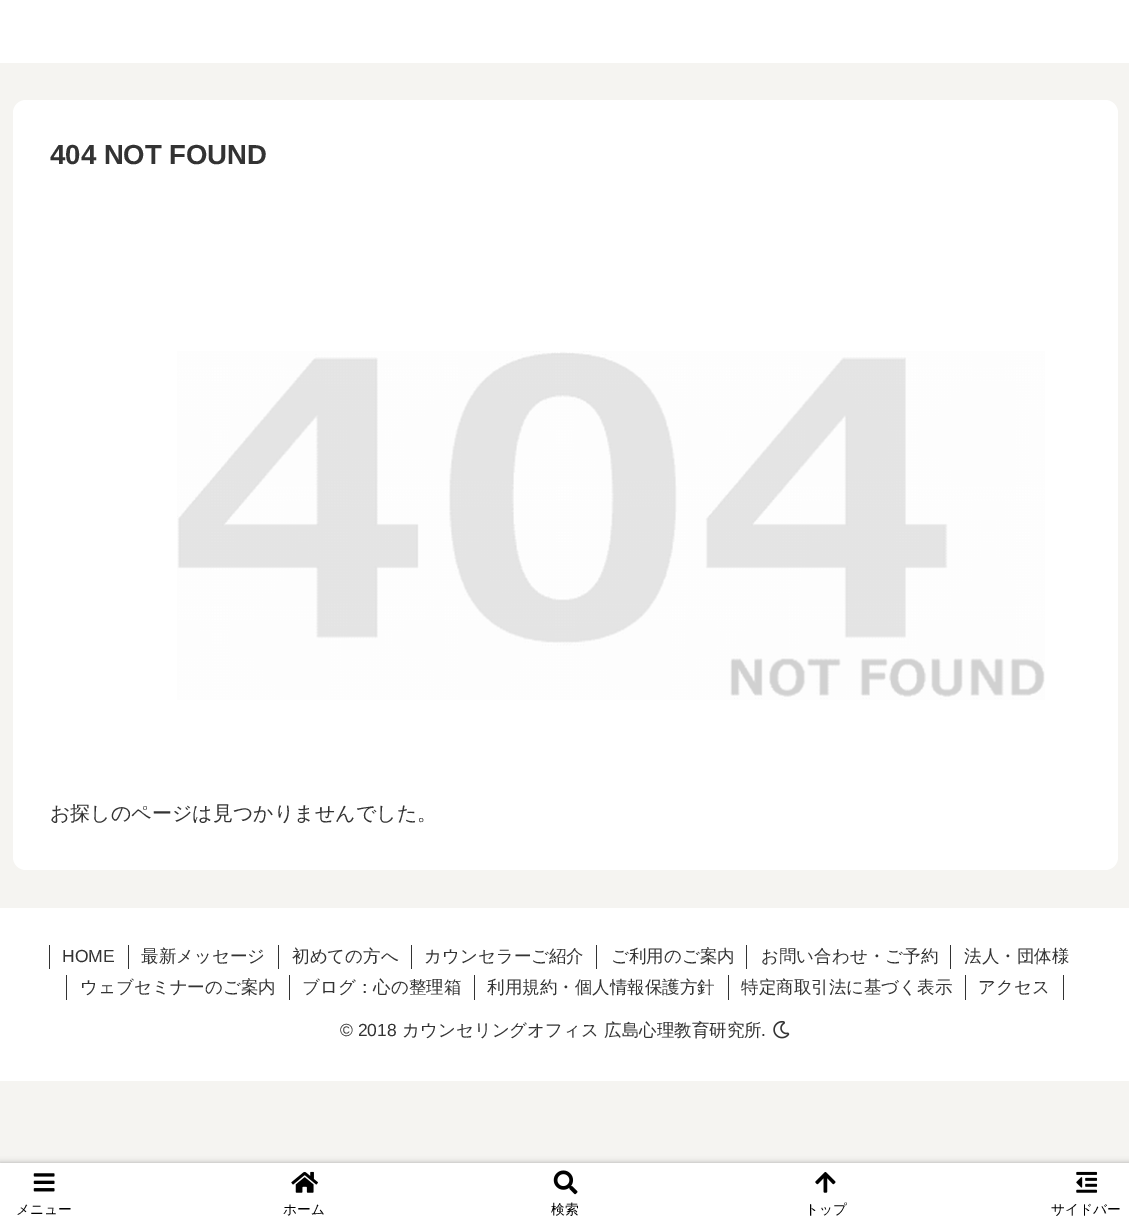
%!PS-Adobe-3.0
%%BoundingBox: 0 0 1129 1224
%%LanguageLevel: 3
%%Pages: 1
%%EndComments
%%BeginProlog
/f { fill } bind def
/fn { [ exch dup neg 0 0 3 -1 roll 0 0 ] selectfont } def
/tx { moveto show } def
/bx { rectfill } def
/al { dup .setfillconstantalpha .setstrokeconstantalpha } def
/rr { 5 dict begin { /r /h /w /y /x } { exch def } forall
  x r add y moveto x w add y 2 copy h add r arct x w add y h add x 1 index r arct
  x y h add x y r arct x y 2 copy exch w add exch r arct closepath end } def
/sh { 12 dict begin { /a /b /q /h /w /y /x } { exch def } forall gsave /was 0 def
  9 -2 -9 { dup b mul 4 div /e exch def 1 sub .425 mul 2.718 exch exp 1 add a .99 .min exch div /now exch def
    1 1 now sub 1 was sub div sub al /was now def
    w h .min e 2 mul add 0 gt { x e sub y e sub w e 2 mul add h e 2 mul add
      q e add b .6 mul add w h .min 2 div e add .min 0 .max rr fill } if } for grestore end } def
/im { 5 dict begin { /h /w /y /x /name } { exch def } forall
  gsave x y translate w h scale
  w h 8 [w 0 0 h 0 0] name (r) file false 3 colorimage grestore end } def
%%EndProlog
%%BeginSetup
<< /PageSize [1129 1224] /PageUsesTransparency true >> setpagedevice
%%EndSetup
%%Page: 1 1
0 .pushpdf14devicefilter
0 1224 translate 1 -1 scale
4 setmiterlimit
0.961 0.957 0.945 setrgbcolor
0 0 1129 1224 bx
1 setgray
0 0 1129 63 bx
13 100 1105 770 13 rr f
/LiberationSans-Bold 27.5 fn
0.2 setgray
(404 NOT FOUND) 50 164 tx
(image0.raw) 177 351 868 349 im
/WenQuanYiZenHei-Medium 20 fn
(お探しのページは見つかりませんでした。) 50 820 tx
1 setgray
0 908 1129 173 bx
0.2 setgray
49 945 1 24 bx
/LiberationSans-Regular 17.5 fn
(HOME) 62 962 tx
128 945 1 24 bx
/WenQuanYiZenHei-Medium 17.5 fn
(最新メッセージ) 141 962 tx
278 945 1 24 bx
(初めての方へ) 292 962 tx
411 945 1 24 bx
(カウンセラーご紹介) 424 962 tx
596 945 1 24 bx
(ご利用のご案内) 611 962 tx
746 945 1 24 bx
(お問い合わせ・ご予約) 761 962 tx
950 945 1 24 bx
(法人・団体様) 964 962 tx
66 975 1 25 bx
(ウェブセミナーのご案内) 80 993 tx
289 975 1 25 bx
(ブログ：心の整理箱) 302 993 tx
474 975 1 25 bx
(利用規約・個人情報保護方針) 487 993 tx
728 975 1 25 bx
(特定商取引法に基づく表示) 741 993 tx
1063 975 1 25 bx
965 975 1 25 bx
(アクセス) 978 993 tx
/LiberationSans-Regular 17.5 fn
(© 2018) 340 1036 tx
/WenQuanYiZenHei-Medium 17.5 fn
(カウンセリングオフィス) 402 1036 tx
(広島心理教育研究所) 604 1036 tx
/LiberationSans-Regular 17.5 fn
(.) 761 1036 tx
(image1.raw) 773 1020 17 19 im
0.663 setgray
0 1163 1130 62 0 3 1 sh
1 setgray
0 1163 1129 61 bx
(image2.raw) 33 1173 22 19 im
/WenQuanYiZenHei-Medium 13.75 fn
0 setgray
(メニュー) 16 1214 tx
(image3.raw) 291 1171 27 22 im
(ホーム) 283 1214 tx
(image4.raw) 553 1170 25 25 im
(検索) 551 1214 tx
(image5.raw) 815 1172 21 21 im
(トップ) 805 1214 tx
(image6.raw) 1076 1171 22 22 im
(サイドバー) 1051 1214 tx
.poppdf14devicefilter showpage
%%EOF
